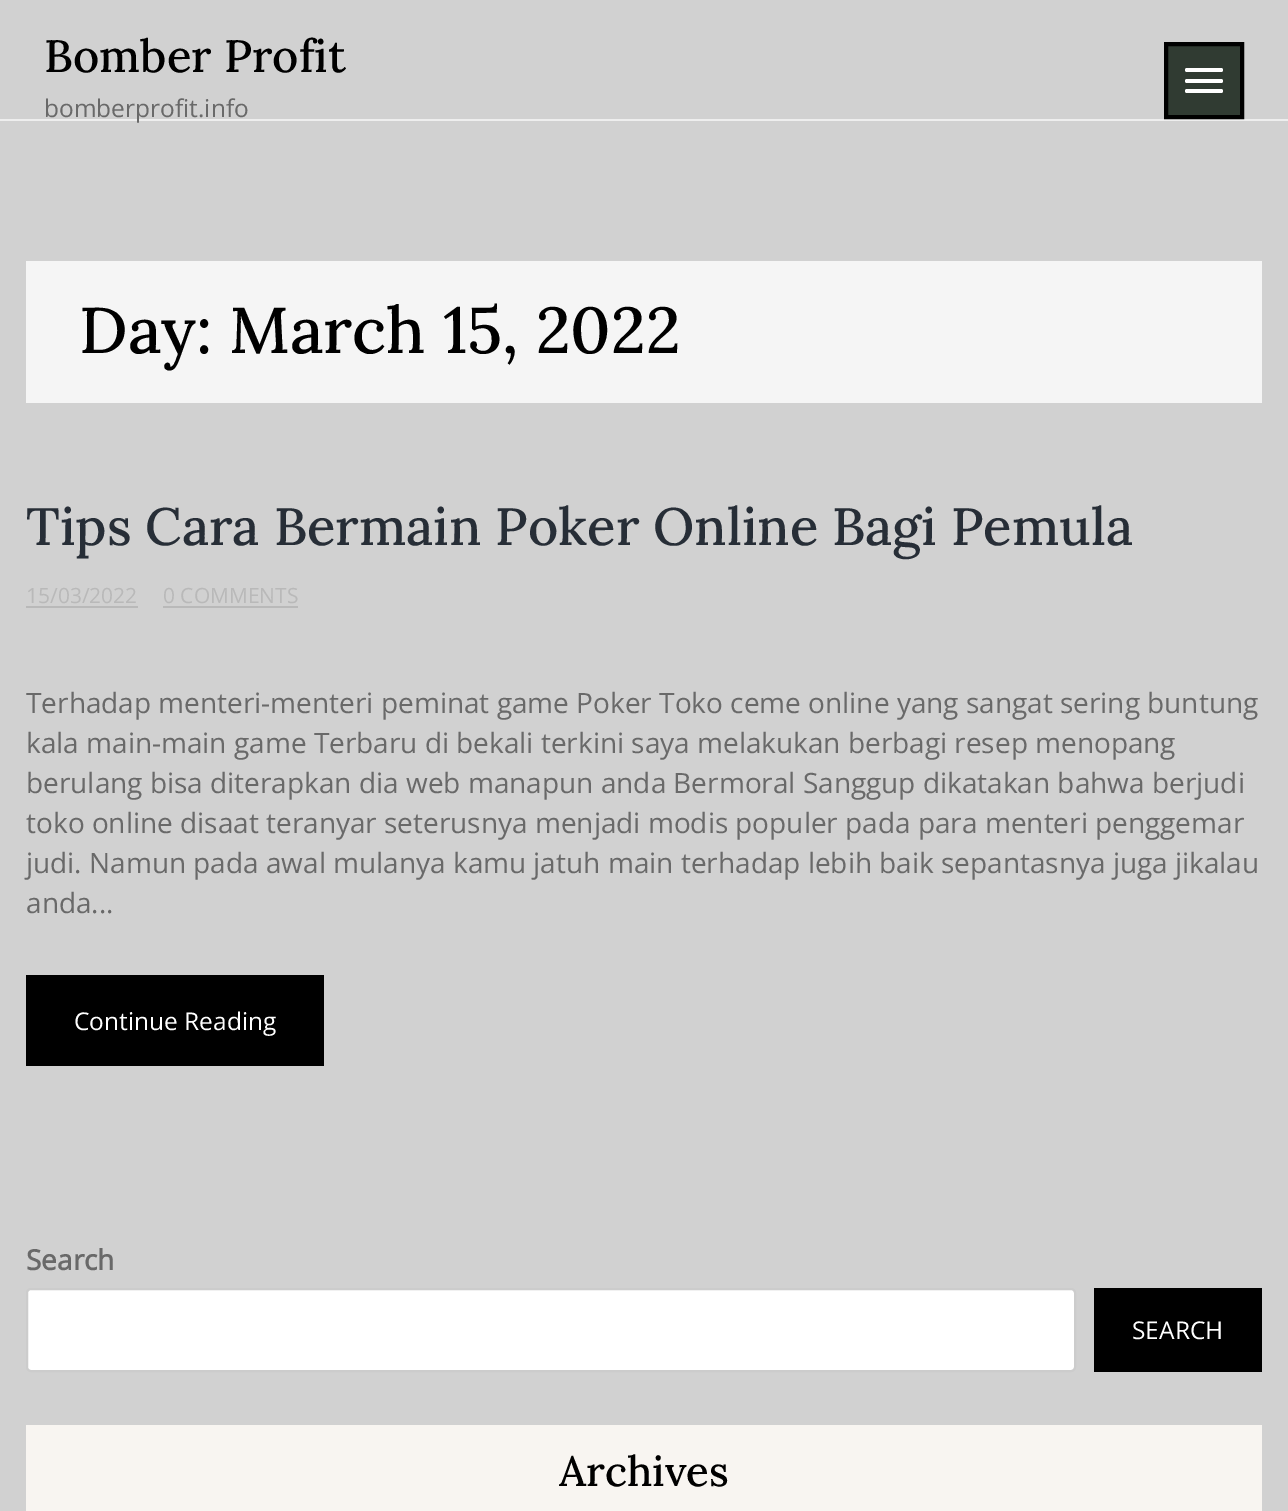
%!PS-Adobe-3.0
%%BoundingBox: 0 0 1288 1511
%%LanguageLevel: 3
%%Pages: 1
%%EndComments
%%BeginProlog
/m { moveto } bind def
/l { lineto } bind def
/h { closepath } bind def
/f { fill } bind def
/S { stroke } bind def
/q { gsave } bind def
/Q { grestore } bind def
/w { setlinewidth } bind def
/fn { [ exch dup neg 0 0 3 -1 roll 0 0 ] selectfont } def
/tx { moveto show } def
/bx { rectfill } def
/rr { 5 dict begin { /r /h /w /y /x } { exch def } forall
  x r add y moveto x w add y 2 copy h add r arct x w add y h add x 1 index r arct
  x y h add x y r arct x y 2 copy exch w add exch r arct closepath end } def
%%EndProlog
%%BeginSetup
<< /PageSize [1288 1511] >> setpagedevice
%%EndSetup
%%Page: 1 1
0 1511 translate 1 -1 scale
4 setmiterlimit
0.82 setgray
0 0 1288 1511 bx
0.933 setgray
0 119 1288 2 bx
/Lora-Medium 45.5 fn
0 setgray
(Bomber Profit) 44 72 tx
/OpenSans-Regular 24.5 fn
0.412 setgray
(bomberprofit.info) 44 117 tx
0.188 0.231 0.196 setrgbcolor
1166 44 m 1242 44 l 1242 117 l 1166 117 l h q f Q
0 setgray
4 w
S
1 setgray
1185 68 38 4 2 rr f
1185 79 38 4 2 rr f
1185 89 38 4 2 rr f
0.961 setgray
26 261 1236 142 bx
/Lora-Medium 64.75 fn
0 setgray
(Day: March 15, 2022) 79 353 tx
/Lora-Medium 52.5 fn
0.153 0.18 0.216 setrgbcolor
(Tips Cara Bermain Poker Online Bagi Pemula) 26 545 tx
/OpenSans-Regular 21 fn
0.725 setgray
(15/03/2022) 26 603 tx
26 606 112 2 bx
(0 COMMENTS) 163 603 tx
163 606 135 2 bx
/OpenSans-Regular 28 fn
0.412 setgray
(Terhadap menteri-menteri peminat game Poker Toko ceme online yang sangat sering buntung) 26 713 tx
(kala main-main game Terbaru di bekali terkini saya melakukan berbagi resep menopang) 26 753 tx
(berulang bisa diterapkan dia web manapun anda Bermoral Sanggup dikatakan bahwa berjudi) 26 793 tx
(toko online disaat teranyar seterusnya menjadi modis populer pada para menteri penggemar) 26 833 tx
(judi. Namun pada awal mulanya kamu jatuh main terhadap lebih baik sepantasnya juga jikalau) 26 873 tx
(anda...) 26 913 tx
0 setgray
26 975 298 91 bx
/OpenSans-Regular 24.5 fn
1 setgray
(Continue Reading) 74 1030 tx
/OpenSans-Bold 28 fn
0.412 setgray
(Search) 26 1270 tx
1 setgray
27 1289 1048 82 4 rr q f Q
0.8 setgray
2 w
S
0 setgray
1094 1288 168 84 bx
/OpenSans-Regular 24.5 fn
1 setgray
(SEARCH) 1132 1339 tx
0.973 0.961 0.945 setrgbcolor
26 1425 1236 86 bx
/Lora-Medium 42 fn
0 setgray
(Archives) 559 1486 tx
showpage
%%EOF
